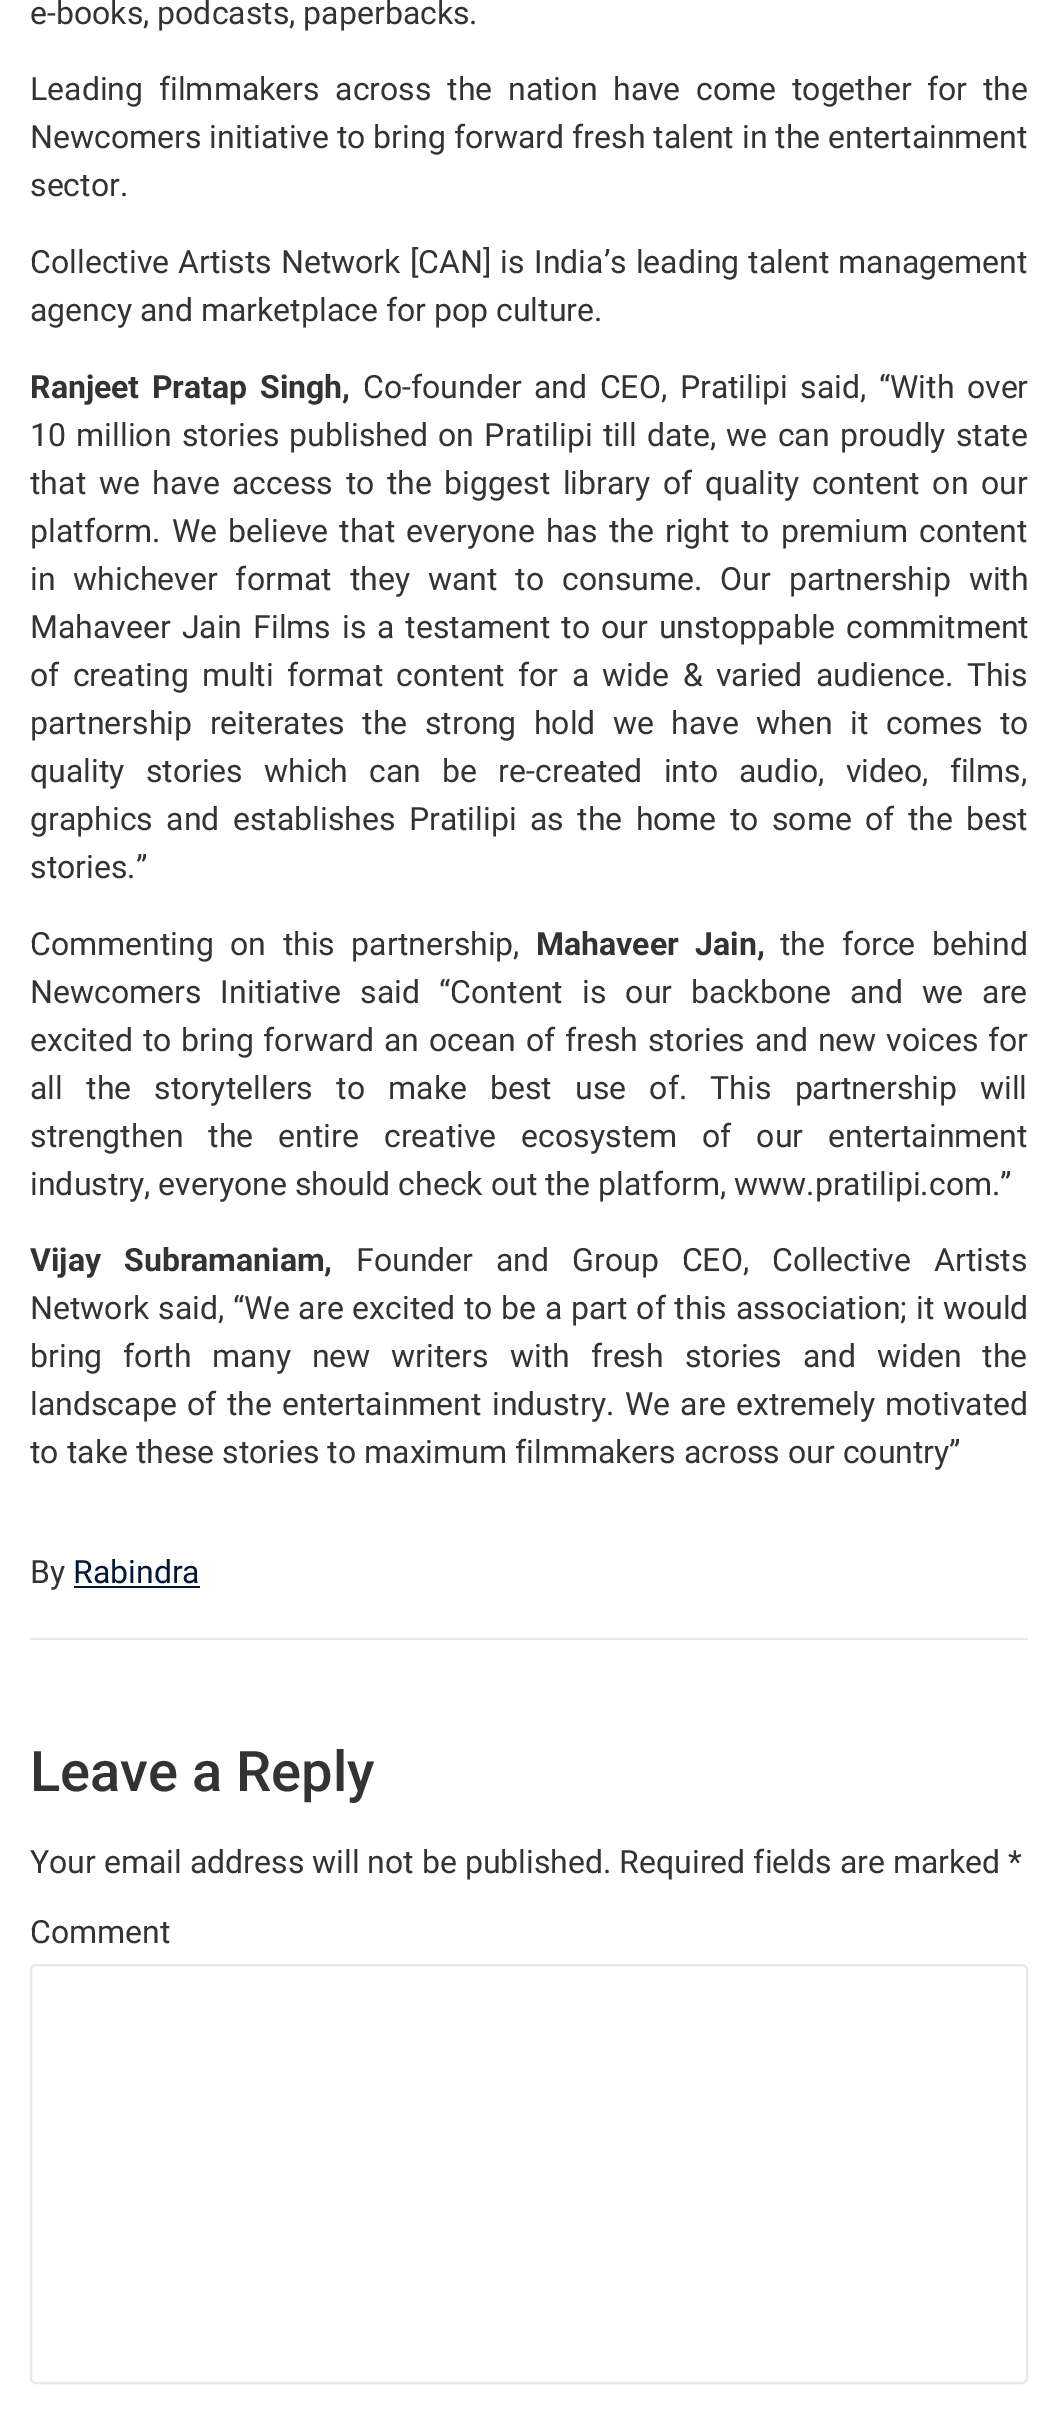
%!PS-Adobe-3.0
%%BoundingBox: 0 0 1058 2428
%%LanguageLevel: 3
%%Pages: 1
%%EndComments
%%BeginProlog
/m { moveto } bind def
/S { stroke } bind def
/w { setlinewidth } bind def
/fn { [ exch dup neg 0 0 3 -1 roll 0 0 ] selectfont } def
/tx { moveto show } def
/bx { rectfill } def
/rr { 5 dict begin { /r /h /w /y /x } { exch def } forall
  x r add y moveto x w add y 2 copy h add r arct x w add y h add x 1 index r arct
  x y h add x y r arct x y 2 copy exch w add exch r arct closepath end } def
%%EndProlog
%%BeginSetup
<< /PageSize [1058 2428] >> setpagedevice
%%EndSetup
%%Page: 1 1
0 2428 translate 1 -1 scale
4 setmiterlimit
1 setgray
0 0 1058 2428 bx
/Roboto-Regular 32 fn
0.2 setgray
(e-books, podcasts, paperbacks.) 30 24 tx
30 100 m 7.75 0 32 (Leading filmmakers across the nation have come together for the) widthshow
(Newcomers initiative to bring forward fresh talent in the entertainment) 30 148 tx
(sector.) 30 196 tx
30 273 m 1.25 0 32 (Collective Artists Network [CAN] is India’s leading talent management) widthshow
(agency and marketplace for pop culture.) 30 321 tx
/Roboto-Bold 32 fn
30 398 m 4.6 0 32 (Ranjeet Pratap Singh,) widthshow
/Roboto-Regular 32 fn
363 398 m 4.6 0 32 (Co-founder and CEO, Pratilipi said, “With over) widthshow
30 446 m 2.4 0 32 (10 million stories published on Pratilipi till date, we can proudly state) widthshow
30 494 m 4.6 0 32 (that we have access to the biggest library of quality content on our) widthshow
30 542 m 3.25 0 32 (platform. We believe that everyone has the right to premium content) widthshow
30 590 m 10 0 32 (in whichever format they want to consume. Our partnership with) widthshow
30 638 m 3 0 32 (Mahaveer Jain Films is a testament to our unstoppable commitment) widthshow
30 686 m 5.4 0 32 (of creating multi format content for a wide & varied audience. This) widthshow
30 734 m 9.5 0 32 (partnership reiterates the strong hold we have when it comes to) widthshow
30 782 m 13.25 0 32 (quality stories which can be re-created into audio, video, films,) widthshow
30 830 m 5.4 0 32 (graphics and establishes Pratilipi as the home to some of the best) widthshow
(stories.”) 30 878 tx
30 955 m 8.5 0 32 (Commenting on this partnership,) widthshow
/Roboto-Bold 32 fn
536 955 m 8.5 0 32 (Mahaveer Jain,) widthshow
/Roboto-Regular 32 fn
780 955 m 8.5 0 32 (the force behind) widthshow
30 1003 m 11.25 0 32 (Newcomers Initiative said “Content is our backbone and we are) widthshow
30 1051 m 1.9 0 32 (excited to bring forward an ocean of fresh stories and new voices for) widthshow
30 1099 m 15.25 0 32 (all the storytellers to make best use of. This partnership will) widthshow
30 1147 m 17 0 32 (strengthen the entire creative ecosystem of our entertainment) widthshow
(industry, everyone should check out the platform, www.pratilipi.com.”) 30 1195 tx
/Roboto-Bold 32 fn
30 1271 m 15 0 32 (Vijay Subramaniam,) widthshow
/Roboto-Regular 32 fn
356 1271 m 15 0 32 (Founder and Group CEO, Collective Artists) widthshow
30 1319 m 0.75 0 32 (Network said, “We are excited to be a part of this association; it would) widthshow
30 1367 m 13 0 32 (bring forth many new writers with fresh stories and widen the) widthshow
30 1415 m 2.4 0 32 (landscape of the entertainment industry. We are extremely motivated) widthshow
(to take these stories to maximum filmmakers across our country”) 30 1463 tx
0.91 setgray
30 1638 998 2 bx
0.2 setgray
(By) 30 1583 tx
0.008 0.09 0.22 setrgbcolor
(Rabindra) 73 1583 tx
74 1586 126 2 bx
/Roboto-Medium 56 fn
0.2 setgray
(Leave a Reply) 30 1791 tx
/Roboto-Regular 32 fn
(Your email address will not be published. Required fields are marked *) 30 1873 tx
(Comment) 30 1943 tx
0.91 setgray
2 w
31 1965 996 418 5 rr S
showpage
%%EOF
